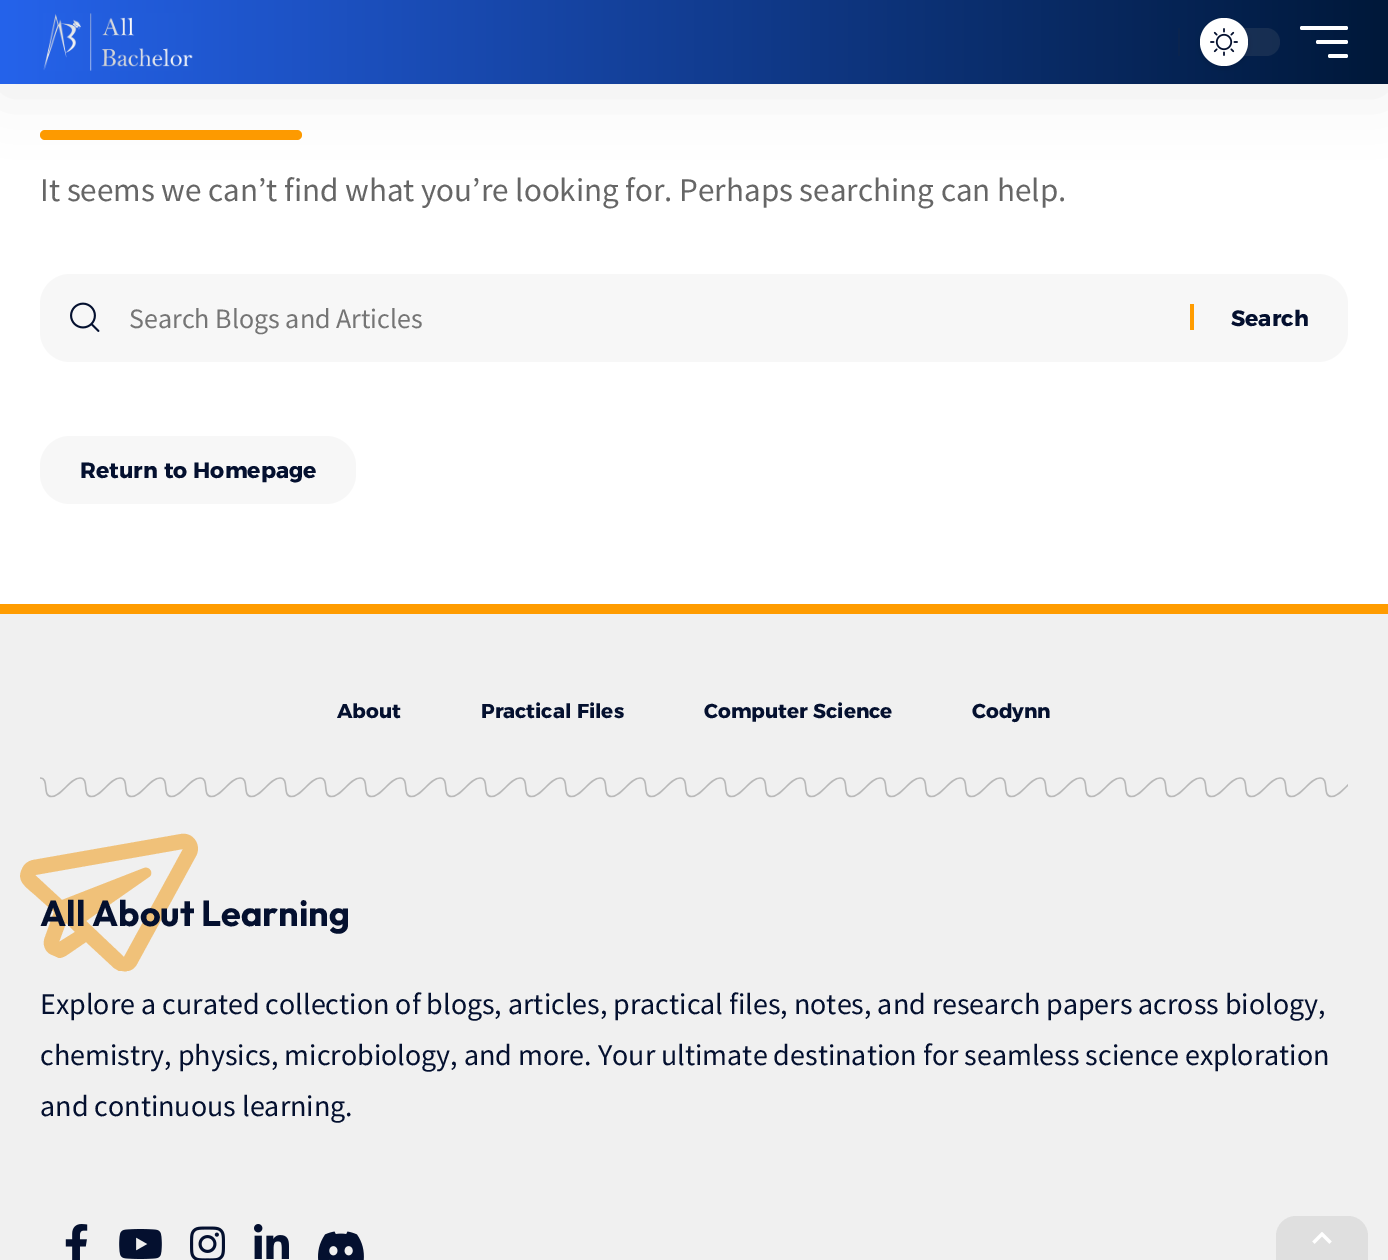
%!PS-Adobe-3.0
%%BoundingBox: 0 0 1388 1260
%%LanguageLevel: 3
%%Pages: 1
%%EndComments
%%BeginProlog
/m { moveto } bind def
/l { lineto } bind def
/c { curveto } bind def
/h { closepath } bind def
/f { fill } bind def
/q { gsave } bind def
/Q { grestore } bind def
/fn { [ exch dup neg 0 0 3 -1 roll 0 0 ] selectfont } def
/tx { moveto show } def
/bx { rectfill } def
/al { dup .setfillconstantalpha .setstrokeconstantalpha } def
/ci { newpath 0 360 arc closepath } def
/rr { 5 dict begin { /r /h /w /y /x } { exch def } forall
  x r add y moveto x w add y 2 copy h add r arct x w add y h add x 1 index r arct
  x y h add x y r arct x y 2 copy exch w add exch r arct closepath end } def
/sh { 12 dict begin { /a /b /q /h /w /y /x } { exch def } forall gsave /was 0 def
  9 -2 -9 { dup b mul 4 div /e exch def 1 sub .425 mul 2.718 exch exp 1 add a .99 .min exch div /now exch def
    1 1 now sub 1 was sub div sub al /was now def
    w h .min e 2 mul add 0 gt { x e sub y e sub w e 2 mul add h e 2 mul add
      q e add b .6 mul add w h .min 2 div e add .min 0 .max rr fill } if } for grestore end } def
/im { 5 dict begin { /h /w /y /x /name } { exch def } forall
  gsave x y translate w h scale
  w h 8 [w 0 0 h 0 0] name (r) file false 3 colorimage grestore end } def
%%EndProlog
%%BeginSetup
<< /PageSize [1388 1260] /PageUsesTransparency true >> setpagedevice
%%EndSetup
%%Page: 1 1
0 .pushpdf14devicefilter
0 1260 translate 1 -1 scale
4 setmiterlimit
1 setgray
0 0 1388 1260 bx
0.941 setgray
0 614 1388 646 bx
1 0.612 0 setrgbcolor
40 130 262 10 5 rr f
0 setgray
0 8 1388 84 0 30 0.07 sh
q 0 0 m 1388 0 l 1388 84 l 0 84 l h clip newpath
<< /ShadingType 2 /ColorSpace /DeviceRGB /Coords [0 42 1388 42] /Extend [true true] /Function << /FunctionType 2 /Domain [0 1] /C0 [0.145 0.388 0.922] /C1 [0 0.094 0.224] /N 1 >> >> shfill Q
(image0.raw) 43 13 150 58 im
0.039 0.141 0.31 setrgbcolor
1178 28 2 28 bx
0.15 al
0.533 setgray
1200 28 80 28 14 rr f
1 al
0 setgray
1200 20 48 48 24 4 0.12 sh
1 setgray
1224 42 24 ci f
(image1.raw) 1210 28 28 28 im
1300 26 48 4 2 rr f
1316 40 32 4 2 rr f
1328 54 20 4 2 rr f
/SourceSansPro-Regular 33.1 fn
0.4 setgray
(It seems we can’t find what you’re looking for. Perhaps searching can help.) 40 201 tx
0.969 setgray
40 274 1308 88 30 rr f
(image2.raw) 70 302 30 30 im
/SourceSansPro-Regular 28 fn
0.459 setgray
(Search Blogs and Articles) 129 328 tx
1 0.612 0 setrgbcolor
1190 304 4 26 bx
/Alexandria-Bold 22 fn
0.016 0.063 0.184 setrgbcolor
(Search) 1231 326 tx
0.969 setgray
40 436 316 68 30 rr f
0.016 0.063 0.184 setrgbcolor
(Return to Homepage) 80 478 tx
1 0.612 0 setrgbcolor
0 604 1388 10 bx
/Alexandria-Bold 20 fn
0.016 0.063 0.184 setrgbcolor
(About) 337 718 tx
(Practical Files) 481 718 tx
(Computer Science) 704 718 tx
(Codynn) 972 718 tx
(image3.raw) 40 777 1308 21 im
0.941 0.757 0.475 setrgbcolor
181 834 m 193 832 202 845 196 856 c 137 964 l 135 968 131 971 127 971 c 125 972 124 971 122 971 c 119 971 l 114 968 l 86 942 l 67 955 l 64 957 61 958 59 958 c 50 954 l 45 951 42 944 45 937 c 54 912 l 35 895 l 26 887 16 881 22 869 c 24 864 28 861 33 860 c h 124 957 m 183 849 l 35 875 l 62 900 l 144 868 l 150 866 154 874 149 877 c 86 921 l h 59 942 m 75 932 l 66 923 l h eofill
/Outfit-Bold 36 fn
0.016 0.063 0.184 setrgbcolor
(All About Learning) 40 926 tx
/SourceSansPro-Regular 30 fn
(Explore a curated collection of blogs, articles, practical files, notes, and research papers across biology,) 40 1014 tx
(chemistry, physics, microbiology, and more. Your ultimate destination for seamless science exploration) 40 1065 tx
(and continuous learning.) 40 1116 tx
(image4.raw) 65 1224 23 36 im
(image5.raw) 119 1229 43 30 im
(image6.raw) 190 1226 35 34 im
(image7.raw) 254 1224 35 35 im
(image8.raw) 318 1231 46 29 im
0.875 setgray
1296 1216 m 1348 1216 l 1359 1216 1368 1225 1368 1236 c 1368 1260 l 1276 1260 l 1276 1236 l 1276 1225 1285 1216 1296 1216 c h f
(image9.raw) 1312 1232 20 12 im
.poppdf14devicefilter showpage
%%EOF
